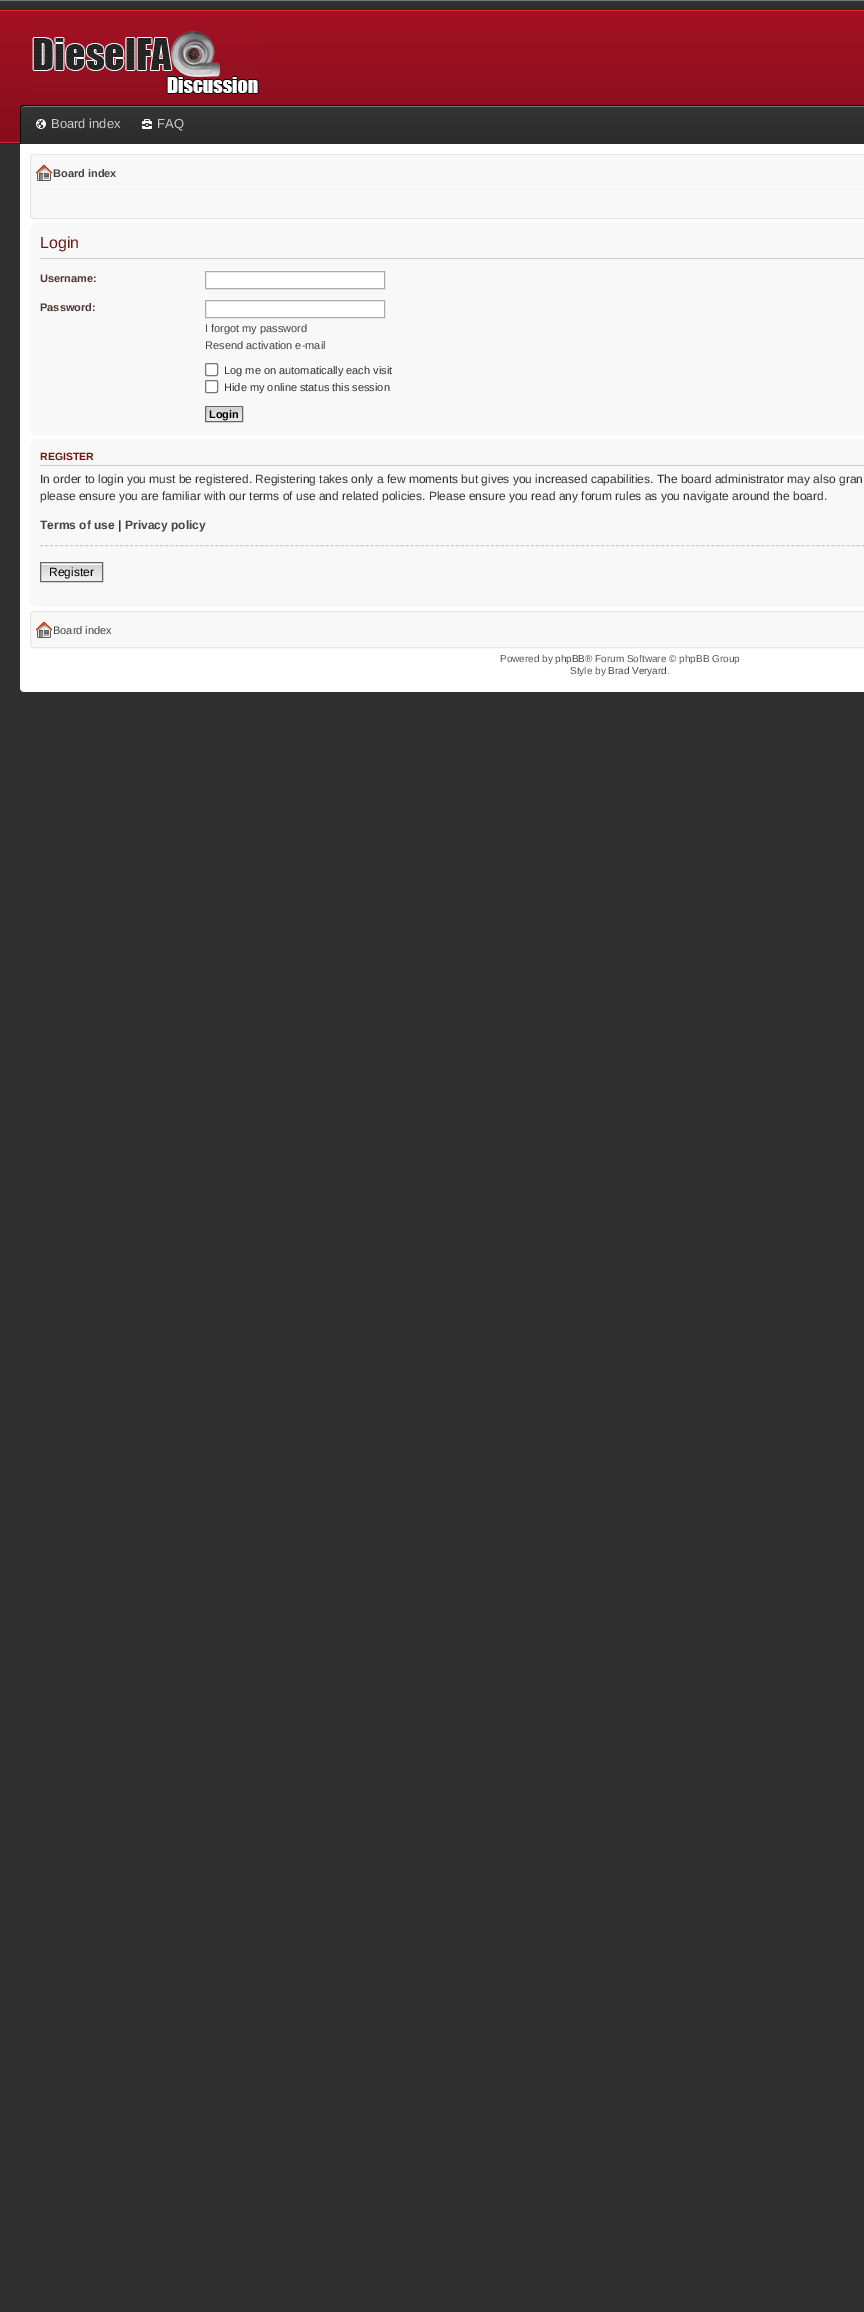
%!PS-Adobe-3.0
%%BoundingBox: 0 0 864 2312
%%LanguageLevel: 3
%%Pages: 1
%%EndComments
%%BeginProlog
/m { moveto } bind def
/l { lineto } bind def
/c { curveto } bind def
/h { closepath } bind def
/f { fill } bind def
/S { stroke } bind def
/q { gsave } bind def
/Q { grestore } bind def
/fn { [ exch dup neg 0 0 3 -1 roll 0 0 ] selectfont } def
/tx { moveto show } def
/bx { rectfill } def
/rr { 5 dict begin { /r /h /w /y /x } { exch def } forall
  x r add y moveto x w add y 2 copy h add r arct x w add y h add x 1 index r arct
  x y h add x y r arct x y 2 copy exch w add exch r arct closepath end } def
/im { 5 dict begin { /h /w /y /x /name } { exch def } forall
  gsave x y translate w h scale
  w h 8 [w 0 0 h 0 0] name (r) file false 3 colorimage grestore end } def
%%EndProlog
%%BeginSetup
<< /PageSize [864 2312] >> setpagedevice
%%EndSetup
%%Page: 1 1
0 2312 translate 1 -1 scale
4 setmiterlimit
0.184 setgray
0 0 864 2312 bx
q 0 1 m 864 1 l 864 10 l 0 10 l h clip newpath
<< /ShadingType 2 /ColorSpace /DeviceRGB /Coords [620 0 620 10] /Extend [true true] /Function << /FunctionType 2 /Domain [0 1] /C0 [0.212 0.208 0.204] /C1 [0.169 0.169 0.173] /N 1 >> >> shfill Q
0.459 setgray
0 0 864 1 bx
0.91 0.157 0.18 setrgbcolor
0 10 864 1 bx
q 0 11 m 864 11 l 864 142 l 0 142 l h clip newpath
<< /ShadingType 2 /ColorSpace /DeviceRGB /Coords [620 11 620 143] /Extend [true true] /Function << /FunctionType 2 /Domain [0 1] /C0 [0.639 0.067 0.137] /C1 [0.525 0.055 0.114] /N 1 >> >> shfill Q
0.831 0.161 0.239 setrgbcolor
0 142 20 1 bx
0.373 0.039 0.082 setrgbcolor
0 143 20 1 bx
(image0.raw) 32 31 227 63 im
q
24 105 m 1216 105 l 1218 105 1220 107 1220 109 c 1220 144 l 20 144 l 20 109 l 20 107 22 105 24 105 c h clip newpath
q 20 106 m 864 106 l 864 144 l 20 144 l h clip newpath
<< /ShadingType 2 /ColorSpace /DeviceRGB /Coords [620 106 620 144] /Extend [true true] /Function << /FunctionType 2 /Domain [0 1] /C0 [0.212 0.208 0.204] /C1 [0.169 0.169 0.173] /N 1 >> >> shfill Q
Q
0.459 setgray
24 107 m 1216 107 l 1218 107 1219 108 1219 110 c 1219 109 l 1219 107 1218 106 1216 106 c 24 106 l 22 106 21 107 21 109 c 21 110 l 21 108 22 107 24 107 c h f
0 setgray
24 105 m 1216 105 l 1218 105 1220 107 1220 109 c 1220 144 l 20 144 l 20 109 l 20 107 22 105 24 105 c h 24 106 m 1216 106 l 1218 106 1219 107 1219 109 c 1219 144 l 21 144 l 21 109 l 21 107 22 106 24 106 c h eofill
(image1.raw) 36 119 10 10 im
/LiberationSans-Regular 13 fn
0.8 setgray
(Board index) 51 128 tx
(image2.raw) 142 119 10 10 im
(FAQ) 157 128 tx
1 setgray
20 144 m 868 144 l 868 688 l 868 690 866 692 864 692 c 24 692 l 22 692 20 690 20 688 c h f
0.973 setgray
30 154 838 65 4 rr f
1 setgray
34 156 m 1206 156 l 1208 156 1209 157 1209 159 c 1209 158 l 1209 156 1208 155 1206 155 c 34 155 l 32 155 31 156 31 158 c 31 159 l 31 157 32 156 34 156 c h f
0.902 setgray
30.5 154.5 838 64 3.5 rr S
1 setgray
36 186 828 1 bx
(image3.raw) 36 165 16 16 im
/LiberationSans-Bold 11 fn
0.267 setgray
(Board index) 53 177 tx
0.973 setgray
30 223 834 212 bx
(image4.raw) 30 223 4 4 im
0.8 setgray
40 258 824 1 bx
/LiberationSans-Regular 16 fn
0.431 0.094 0.094 setrgbcolor
(Login) 40 248 tx
/LiberationSans-Bold 11 fn
0.31 0.224 0.216 setrgbcolor
(Username:) 40 282 tx
1 setgray
205.5 271.5 m 384.5 271.5 l 384.5 288.5 l 205.5 288.5 l h q f Q
0.702 0.659 0.659 setrgbcolor
S
0.31 0.224 0.216 setrgbcolor
(Password:) 40 311 tx
1 setgray
205.5 300.5 m 384.5 300.5 l 384.5 317.5 l 205.5 317.5 l h q f Q
0.702 0.659 0.659 setrgbcolor
S
/LiberationSans-Regular 11 fn
0.267 setgray
(I forgot my password) 205 332 tx
(Resend activation e-mail) 205 349 tx
1 setgray
205.5 363.5 12 12 1.5 rr q f Q
0.463 setgray
S
0.2 setgray
(Log me on automatically each visit) 224 374 tx
1 setgray
205.5 380.5 12 12 1.5 rr q f Q
0.463 setgray
S
0.2 setgray
(Hide my online status this session) 224 391 tx
(image5.raw) 206 407 36 14 im
0.4 setgray
205.5 406.5 37 15 rectstroke
/LiberationSans-Bold 11 fn
0 setgray
(Login) 209 418 tx
0.996 setgray
30 432 3 3 bx
0.973 setgray
30 439 834 168 bx
(image4.raw) 30 439 4 4 im
0.8 setgray
40 465 824 1 bx
/LiberationSans-Bold 10.5 fn
0.431 0.094 0.094 setrgbcolor
(REGISTER) 40 460 tx
/LiberationSans-Regular 12 fn
0.2 setgray
(In order to login you must be registered. Registering takes only a few moments but gives you increased capabilities. The board administrator may also gran) 40 483 tx
(please ensure you are familiar with our terms of use and related policies. Please ensure you read any forum rules as you navigate around the board.) 40 500 tx
/LiberationSans-Bold 12 fn
0.267 setgray
(Terms of use) 40 529 tx
0.2 setgray
(|) 118 529 tx
0.267 setgray
(Privacy policy) 125 529 tx
0.8 setgray
[3 2.01] 0 setdash
40 545.5 m 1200 545.5 l S
(image6.raw) 41 564 61 17 im
0.4 setgray
[] 0 setdash
40.5 562.5 62 19 rectstroke
/LiberationSans-Regular 12 fn
0 setgray
(Register) 49 576 tx
0.996 setgray
30 604 3 3 bx
0.973 setgray
30 611 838 37 4 rr f
1 setgray
34 613 m 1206 613 l 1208 613 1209 614 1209 616 c 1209 615 l 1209 613 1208 612 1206 612 c 34 612 l 32 612 31 613 31 615 c 31 616 l 31 614 32 613 34 613 c h f
0.902 setgray
30.5 611.5 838 36 3.5 rr S
(image3.raw) 36 622 16 16 im
/LiberationSans-Regular 11 fn
0.267 setgray
(Board index) 53 634 tx
/LiberationSans-Regular 10 fn
0.333 setgray
(Powered by) 500 662 tx
0.267 setgray
(phpBB) 555 662 tx
0.333 setgray
(® Forum Software © phpBB Group) 585 662 tx
(Style by) 570 674 tx
0.267 setgray
(Brad Veryard) 608 674 tx
0.333 setgray
(.) 667 674 tx
showpage
%%EOF
